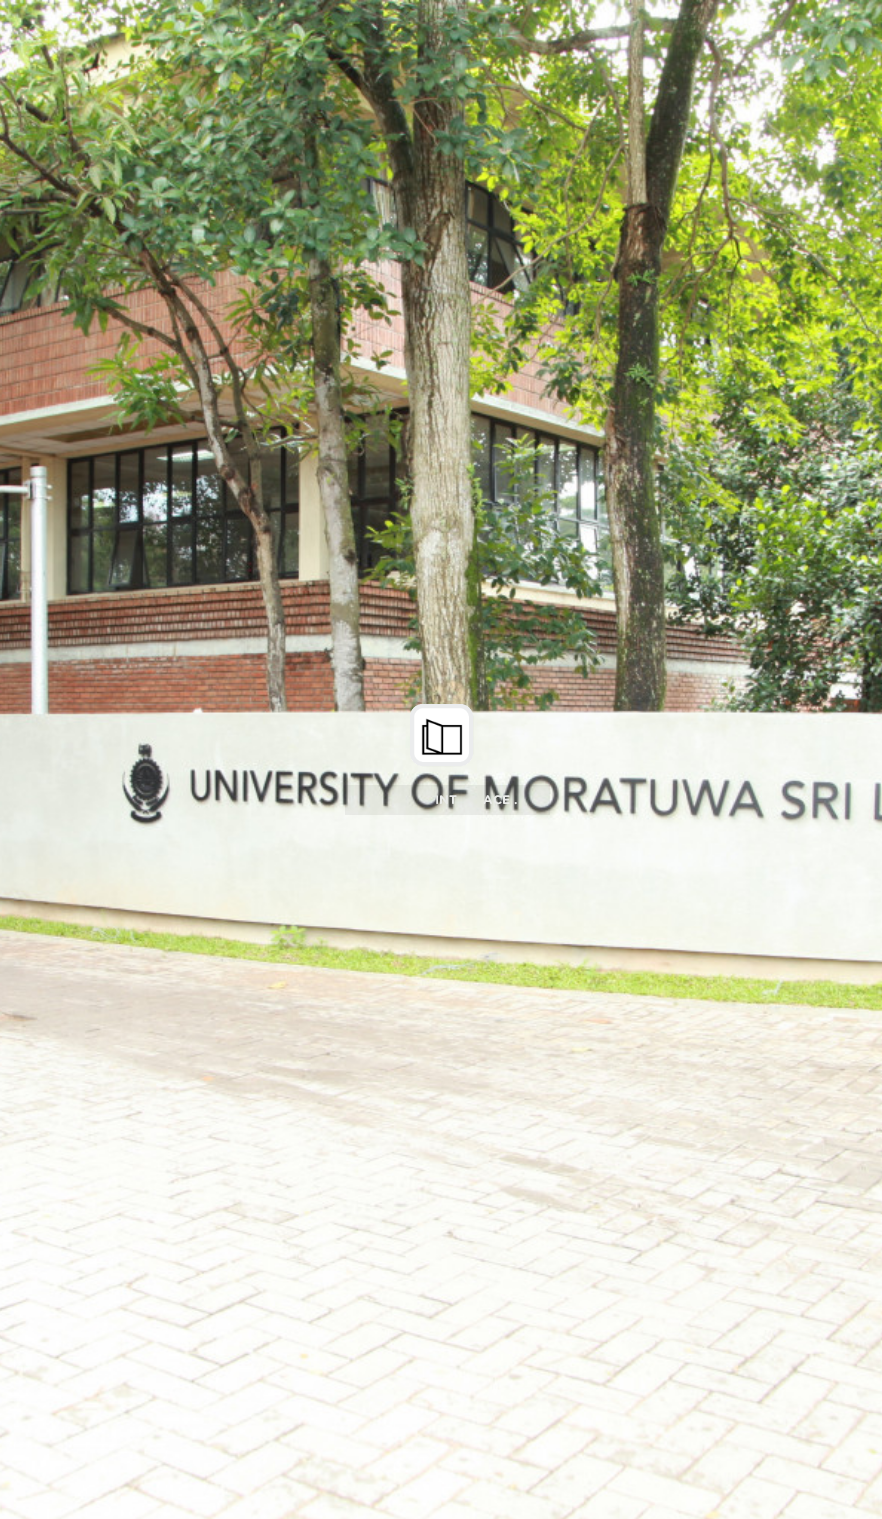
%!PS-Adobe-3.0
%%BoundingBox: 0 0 882 1519
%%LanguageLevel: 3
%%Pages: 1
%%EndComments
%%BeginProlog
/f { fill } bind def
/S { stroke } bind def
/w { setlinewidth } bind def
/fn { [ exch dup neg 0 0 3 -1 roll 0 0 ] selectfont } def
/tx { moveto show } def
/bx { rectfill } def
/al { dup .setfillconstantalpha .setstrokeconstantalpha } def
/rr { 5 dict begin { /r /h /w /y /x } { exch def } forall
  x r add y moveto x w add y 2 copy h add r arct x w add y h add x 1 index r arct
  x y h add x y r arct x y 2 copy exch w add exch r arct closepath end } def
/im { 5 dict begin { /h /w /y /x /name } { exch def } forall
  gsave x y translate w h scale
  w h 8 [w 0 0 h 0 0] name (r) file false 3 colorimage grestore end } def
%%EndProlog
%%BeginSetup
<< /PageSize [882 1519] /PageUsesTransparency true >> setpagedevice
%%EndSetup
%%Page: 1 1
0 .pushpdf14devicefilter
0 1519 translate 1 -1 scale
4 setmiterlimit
1 setgray
0 0 882 1519 bx
(image0.raw) 0 0 882 1519 im
410 704 63 62 13 rr f
0.1 al
0.243 0.278 0.31 setrgbcolor
4 w
412 706 59 58 11 rr S
1 al
(image1.raw) 421 718 42 38 im
0.06 al
0 setgray
345 785 205 30 bx
/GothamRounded-Bold 12.5 fn
1 al
0.918 0.922 0.914 setrgbcolor
(INT) 435 804 tx
(ACE .) 483 804 tx
.poppdf14devicefilter showpage
%%EOF
